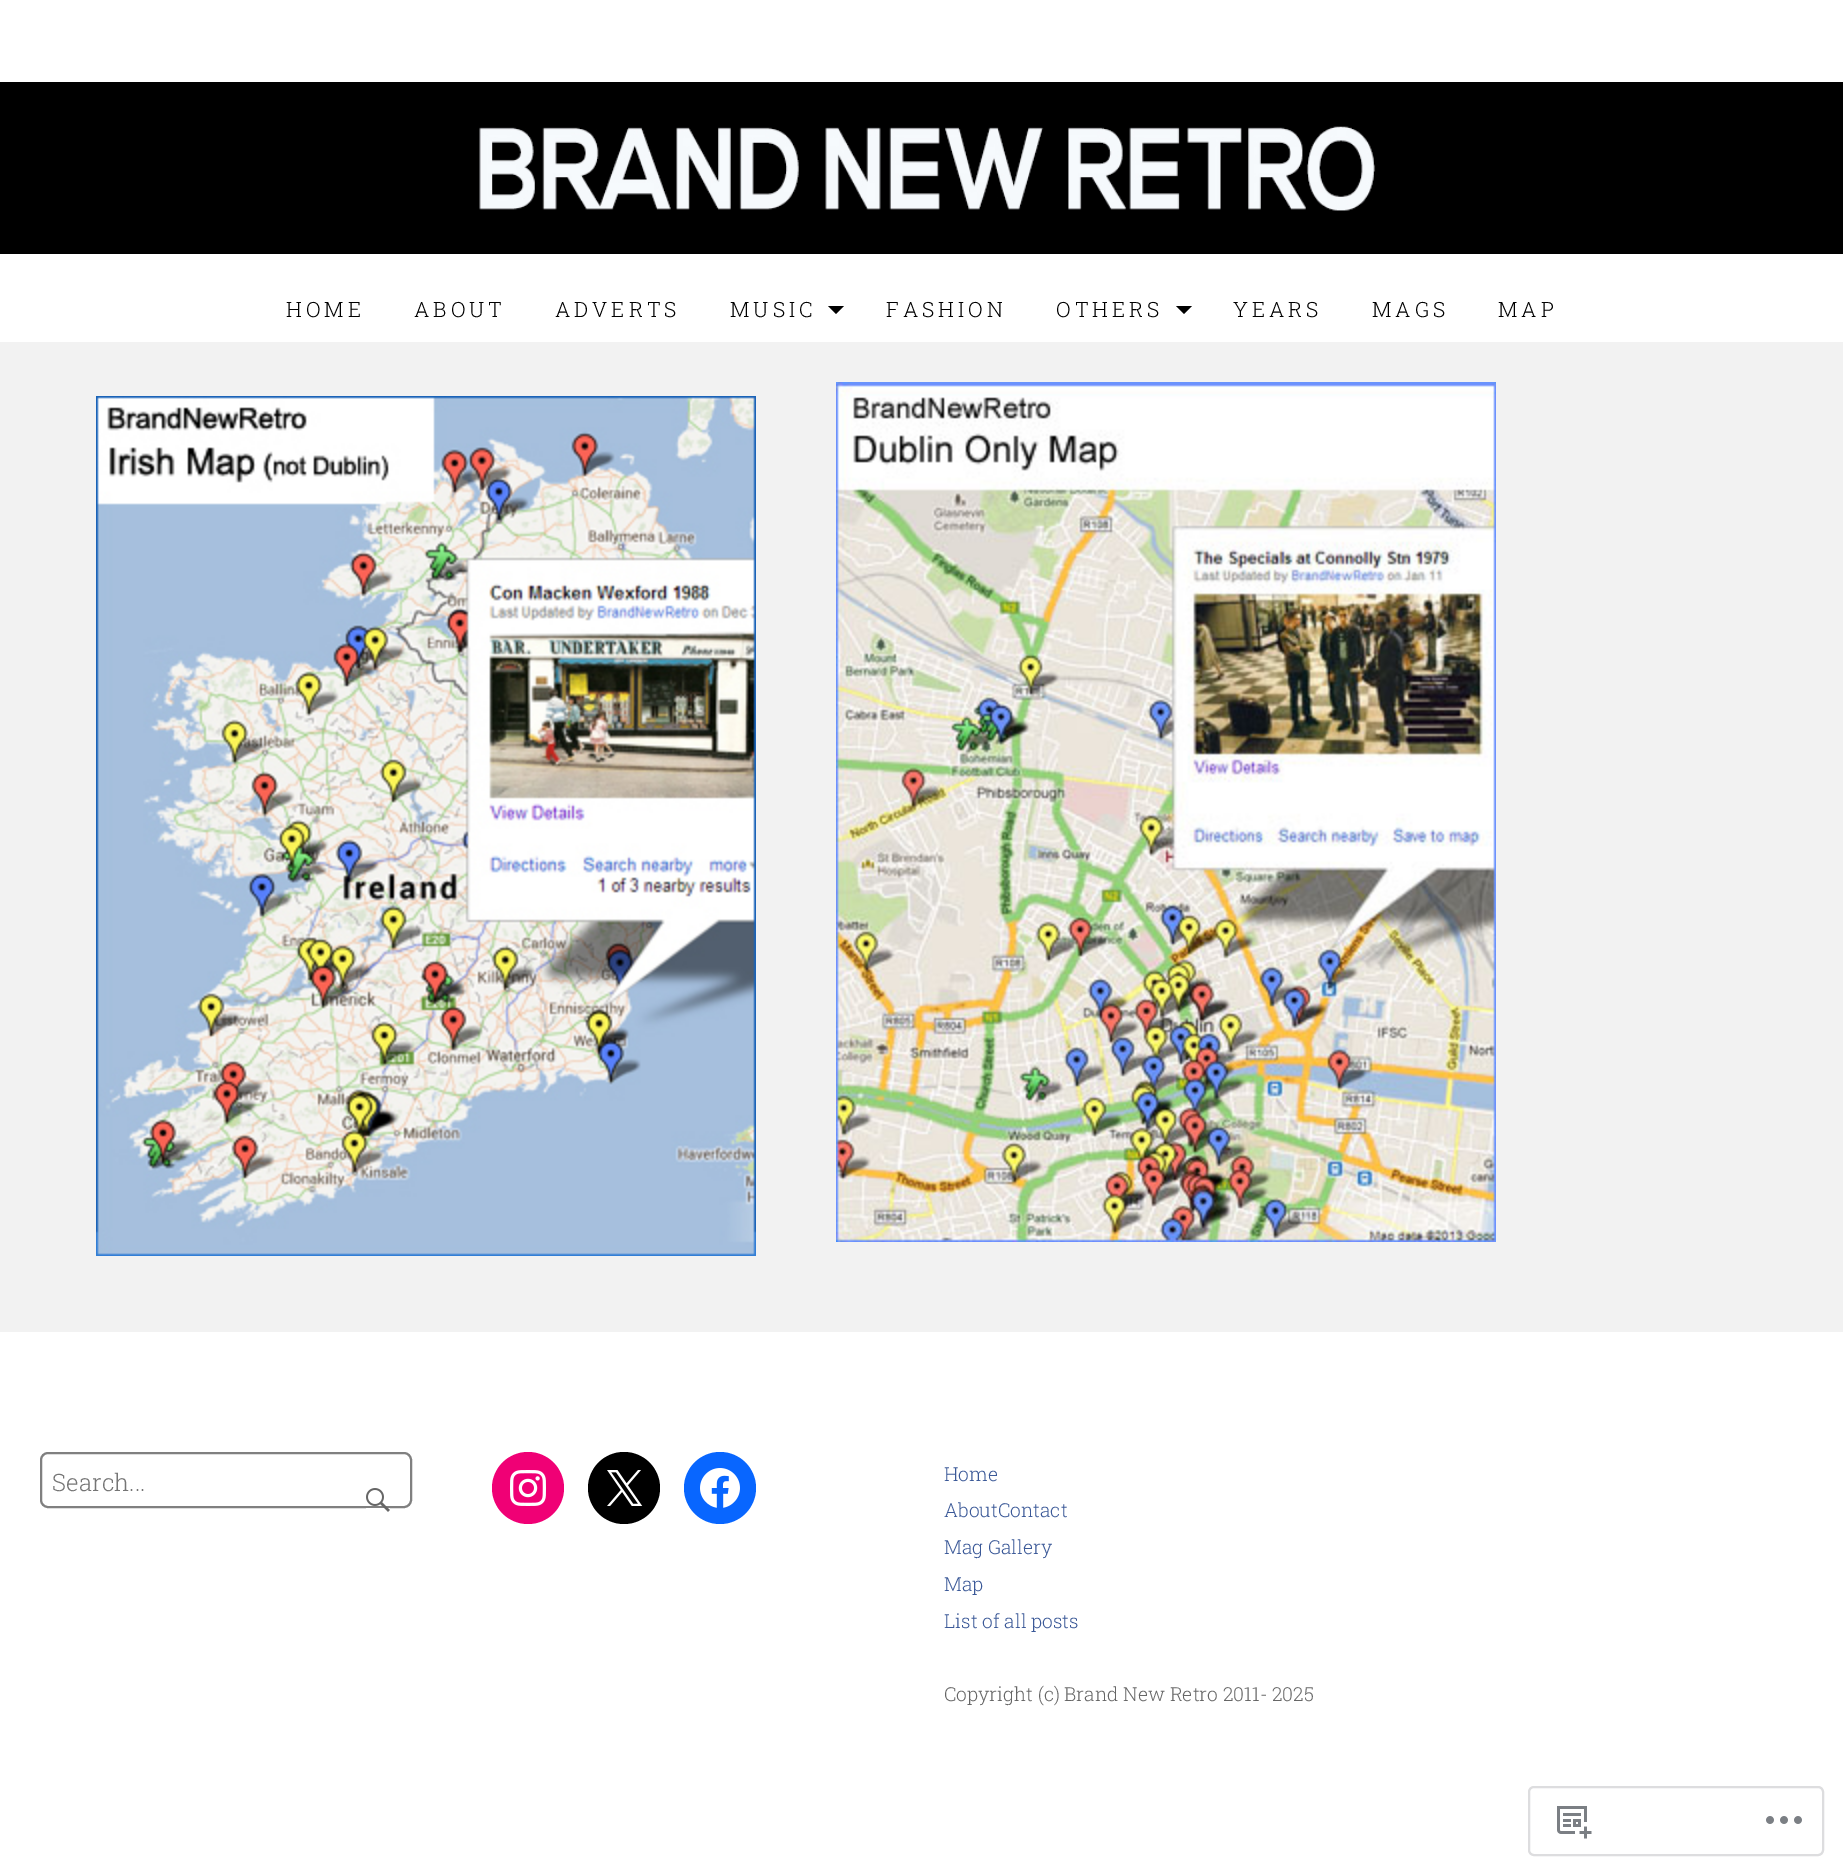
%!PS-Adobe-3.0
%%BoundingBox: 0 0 1843 1875
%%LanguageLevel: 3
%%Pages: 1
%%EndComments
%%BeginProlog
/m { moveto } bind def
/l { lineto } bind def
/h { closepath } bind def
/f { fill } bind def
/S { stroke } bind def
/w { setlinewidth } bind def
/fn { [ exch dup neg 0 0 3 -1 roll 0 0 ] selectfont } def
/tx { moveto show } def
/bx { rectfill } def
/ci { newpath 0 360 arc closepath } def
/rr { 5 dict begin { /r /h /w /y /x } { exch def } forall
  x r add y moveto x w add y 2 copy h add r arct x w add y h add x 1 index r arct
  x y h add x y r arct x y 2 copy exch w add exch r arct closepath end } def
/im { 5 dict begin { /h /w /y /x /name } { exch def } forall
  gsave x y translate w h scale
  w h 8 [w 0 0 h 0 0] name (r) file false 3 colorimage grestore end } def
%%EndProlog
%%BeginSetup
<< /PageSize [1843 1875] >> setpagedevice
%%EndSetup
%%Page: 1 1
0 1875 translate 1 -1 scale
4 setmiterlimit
0.949 setgray
0 0 1843 1875 bx
1 setgray
0 0 1843 342 bx
(image0.raw) 0 82 1843 172 im
/RobotoSlab-Light 21 fn
0 setgray
286 317 m 4 0 (HOME) ashow
414 317 m 4 0 (ABOUT) ashow
555 317 m 4 0 (ADVERTS) ashow
730 317 m 4 0 (MUSIC) ashow
828 306 m 844 306 l 836 314 l h f
886 317 m 4 0 (FASHION) ashow
1056 317 m 4 0 (OTHERS) ashow
1176 306 m 1192 306 l 1184 314 l h f
1233 317 m 4 0 (YEARS) ashow
1372 317 m 4 0 (MAGS) ashow
1498 317 m 4 0 (MAP) ashow
(image1.raw) 96 396 660 860 im
(image2.raw) 836 382 660 860 im
1 setgray
0 1332 1843 543 bx
0.502 setgray
2 w
41 1453 370 54 7 rr S
/RobotoSlab-Light 24 fn
0.459 setgray
(Search...) 52 1491 tx
(image3.raw) 366 1488 24 24 im
0.941 0 0.459 setrgbcolor
528 1488 36 ci f
(image4.raw) 510 1470 36 36 im
0 setgray
624 1488 36 ci f
(image5.raw) 607 1470 36 36 im
0.031 0.4 1 setrgbcolor
720 1488 36 ci f
(image6.raw) 700 1468 40 40 im
/RobotoSlab-Light 19.25 fn
0.231 0.349 0.596 setrgbcolor
(Home) 944 1481 tx
(AboutContact) 944 1517 tx
(Mag Gallery) 944 1554 tx
(Map) 944 1591 tx
(List of all posts) 944 1628 tx
0.4 setgray
(Copyright \(c\) Brand New Retro 2011- 2025) 944 1701 tx
0.867 0.867 0.875 setrgbcolor
1529 1787 294 68 5 rr S
(image7.raw) 1557 1806 35 33 im
(image8.raw) 1766 1816 36 8 im
showpage
%%EOF
